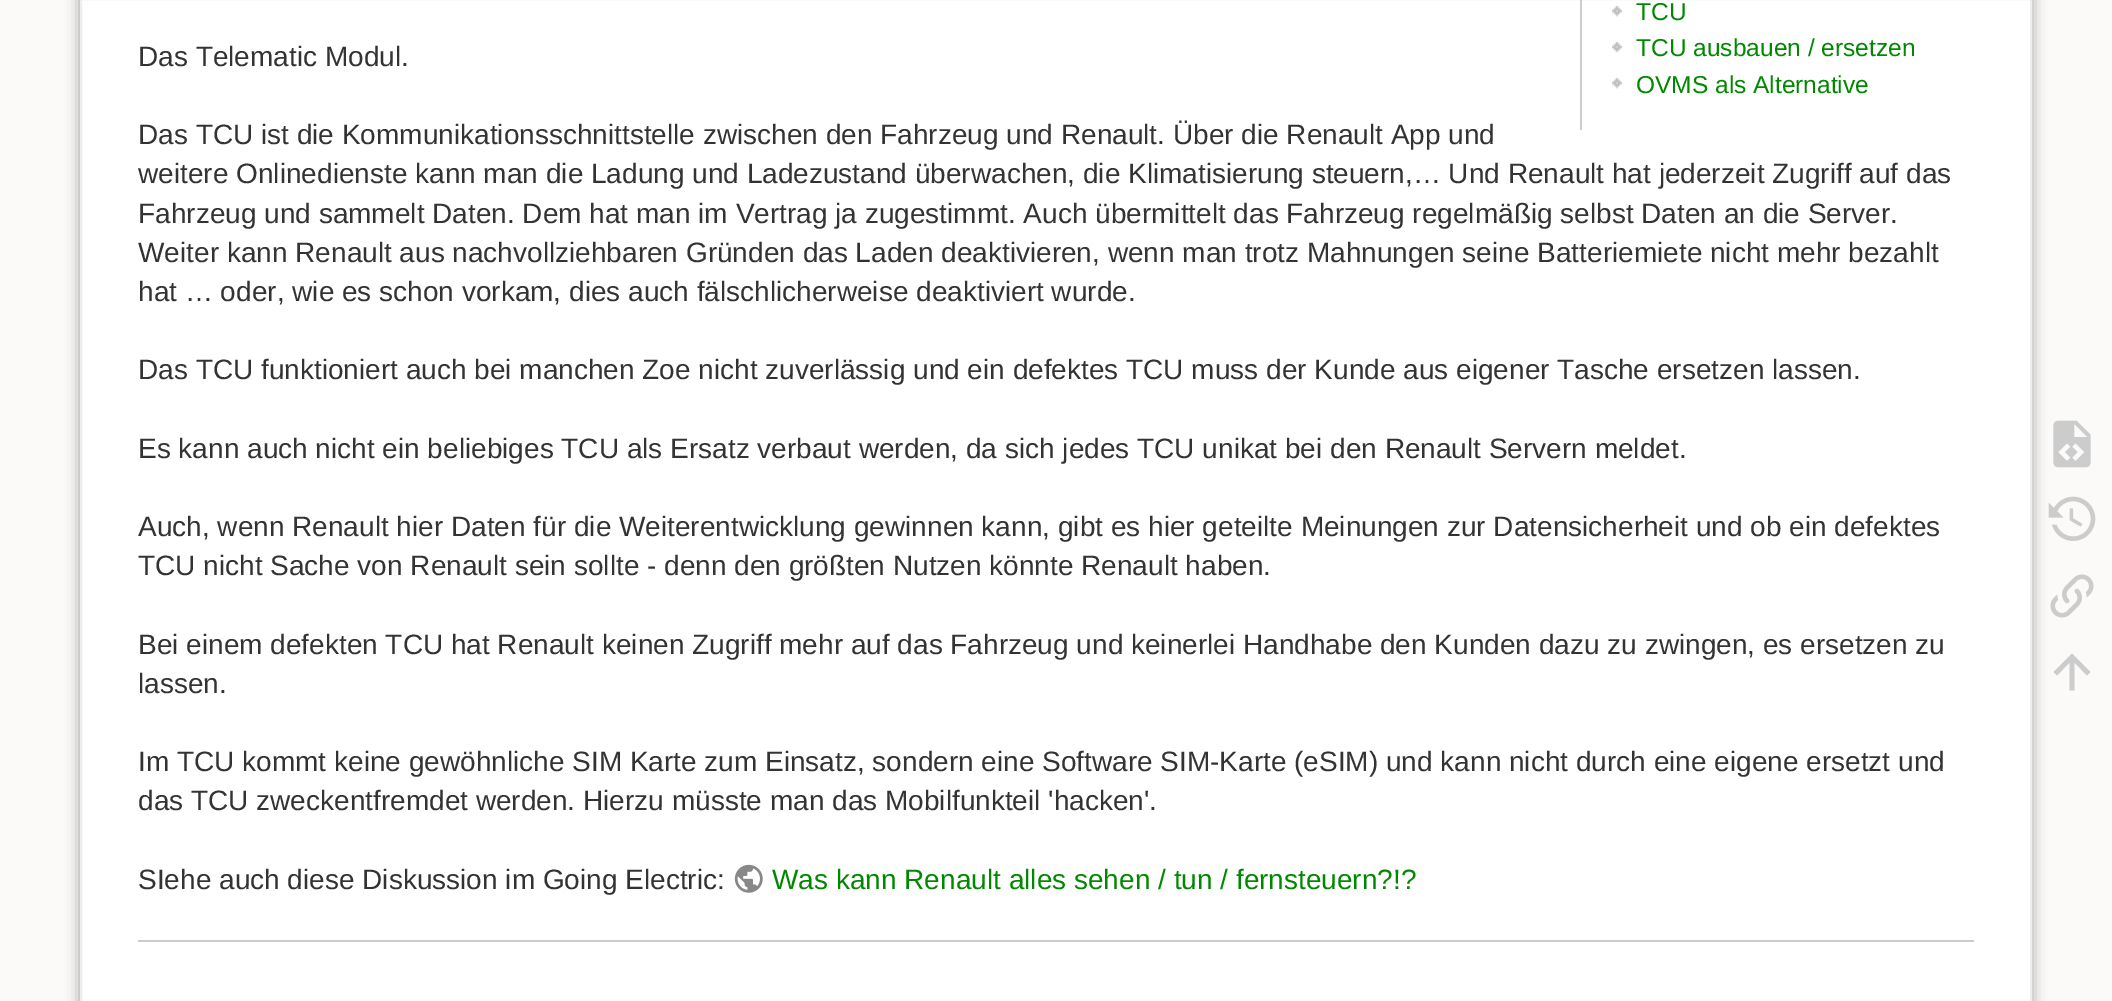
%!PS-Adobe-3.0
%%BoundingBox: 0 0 2112 1001
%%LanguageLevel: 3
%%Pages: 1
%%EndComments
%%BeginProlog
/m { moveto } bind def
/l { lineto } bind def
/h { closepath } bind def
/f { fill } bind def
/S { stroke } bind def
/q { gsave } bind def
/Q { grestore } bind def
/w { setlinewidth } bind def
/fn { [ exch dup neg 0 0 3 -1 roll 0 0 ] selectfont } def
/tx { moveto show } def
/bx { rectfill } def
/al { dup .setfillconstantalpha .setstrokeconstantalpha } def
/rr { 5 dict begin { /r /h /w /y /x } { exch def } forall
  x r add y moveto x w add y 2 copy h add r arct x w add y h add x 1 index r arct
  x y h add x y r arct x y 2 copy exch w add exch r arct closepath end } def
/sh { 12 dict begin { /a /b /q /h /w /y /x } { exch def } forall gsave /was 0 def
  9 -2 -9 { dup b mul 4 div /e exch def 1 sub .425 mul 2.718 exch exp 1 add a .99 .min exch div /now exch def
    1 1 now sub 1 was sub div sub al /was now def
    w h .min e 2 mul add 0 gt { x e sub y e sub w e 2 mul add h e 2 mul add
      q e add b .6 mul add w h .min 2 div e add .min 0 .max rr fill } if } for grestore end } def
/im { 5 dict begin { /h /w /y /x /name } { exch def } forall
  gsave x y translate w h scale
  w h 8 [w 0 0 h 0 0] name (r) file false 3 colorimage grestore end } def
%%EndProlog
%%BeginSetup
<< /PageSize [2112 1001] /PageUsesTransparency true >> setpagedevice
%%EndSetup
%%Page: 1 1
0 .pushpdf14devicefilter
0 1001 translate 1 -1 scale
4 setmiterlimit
0.984 0.98 0.976 setrgbcolor
0 0 2112 1001 bx
0.6 setgray
80 -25 1952 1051 4 7 1 sh
1 setgray
81 -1 m 2031 -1 l 2031 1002 l 81 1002 l h q f Q
0.933 setgray
2 w
S
0.8 setgray
1580 0 2 130 bx
(image0.raw) 1612 6 10 11 im
/LiberationSans-Regular 24.5 fn
0 0.533 0 setrgbcolor
(TCU) 1636 20 tx
(image0.raw) 1612 42 10 11 im
(TCU ausbauen / ersetzen) 1636 56 tx
(image0.raw) 1612 78 10 11 im
(OVMS als Alternative) 1636 93 tx
/LiberationSans-Regular 28 fn
0.2 setgray
(Das Telematic Modul.) 138 66 tx
(Das TCU ist die Kommunikationsschnittstelle zwischen den Fahrzeug und Renault. Über die Renault App und) 138 144 tx
(weitere Onlinedienste kann man die Ladung und Ladezustand überwachen, die Klimatisierung steuern,… Und Renault hat jederzeit Zugriff auf das) 138 183 tx
(Fahrzeug und sammelt Daten. Dem hat man im Vertrag ja zugestimmt. Auch übermittelt das Fahrzeug regelmäßig selbst Daten an die Server.) 138 223 tx
(Weiter kann Renault aus nachvollziehbaren Gründen das Laden deaktivieren, wenn man trotz Mahnungen seine Batteriemiete nicht mehr bezahlt) 138 262 tx
(hat … oder, wie es schon vorkam, dies auch fälschlicherweise deaktiviert wurde.) 138 301 tx
(Das TCU funktioniert auch bei manchen Zoe nicht zuverlässig und ein defektes TCU muss der Kunde aus eigener Tasche ersetzen lassen.) 138 379 tx
(Es kann auch nicht ein beliebiges TCU als Ersatz verbaut werden, da sich jedes TCU unikat bei den Renault Servern meldet.) 138 458 tx
(Auch, wenn Renault hier Daten für die Weiterentwicklung gewinnen kann, gibt es hier geteilte Meinungen zur Datensicherheit und ob ein defektes) 138 536 tx
(TCU nicht Sache von Renault sein sollte - denn den größten Nutzen könnte Renault haben.) 138 575 tx
(Bei einem defekten TCU hat Renault keinen Zugriff mehr auf das Fahrzeug und keinerlei Handhabe den Kunden dazu zu zwingen, es ersetzen zu) 138 654 tx
(lassen.) 138 693 tx
(Im TCU kommt keine gewöhnliche SIM Karte zum Einsatz, sondern eine Software SIM-Karte \(eSIM\) und kann nicht durch eine eigene ersetzt und) 138 771 tx
(das TCU zweckentfremdet werden. Hierzu müsste man das Mobilfunkteil 'hacken'.) 138 810 tx
(SIehe auch diese Diskussion im Going Electric:) 138 889 tx
(image1.raw) 734 864 29 29 im
0 0.533 0 setrgbcolor
(Was kann Renault alles sehen / tun / fernsteuern?!?) 772 889 tx
0.8 setgray
138 940 1836 2 bx
(image2.raw) 2053 420 38 48 im
(image3.raw) 2048 496 48 45 im
(image4.raw) 2050 574 44 44 im
2074.5 690.5 m 2069.5 690.5 l 2069.5 662.5 l 2057 675.5 l 2053.5 672 l 2072 653.5 l 2090.5 672 l 2087 675.5 l 2074.5 662.5 l h f
.poppdf14devicefilter showpage
%%EOF
